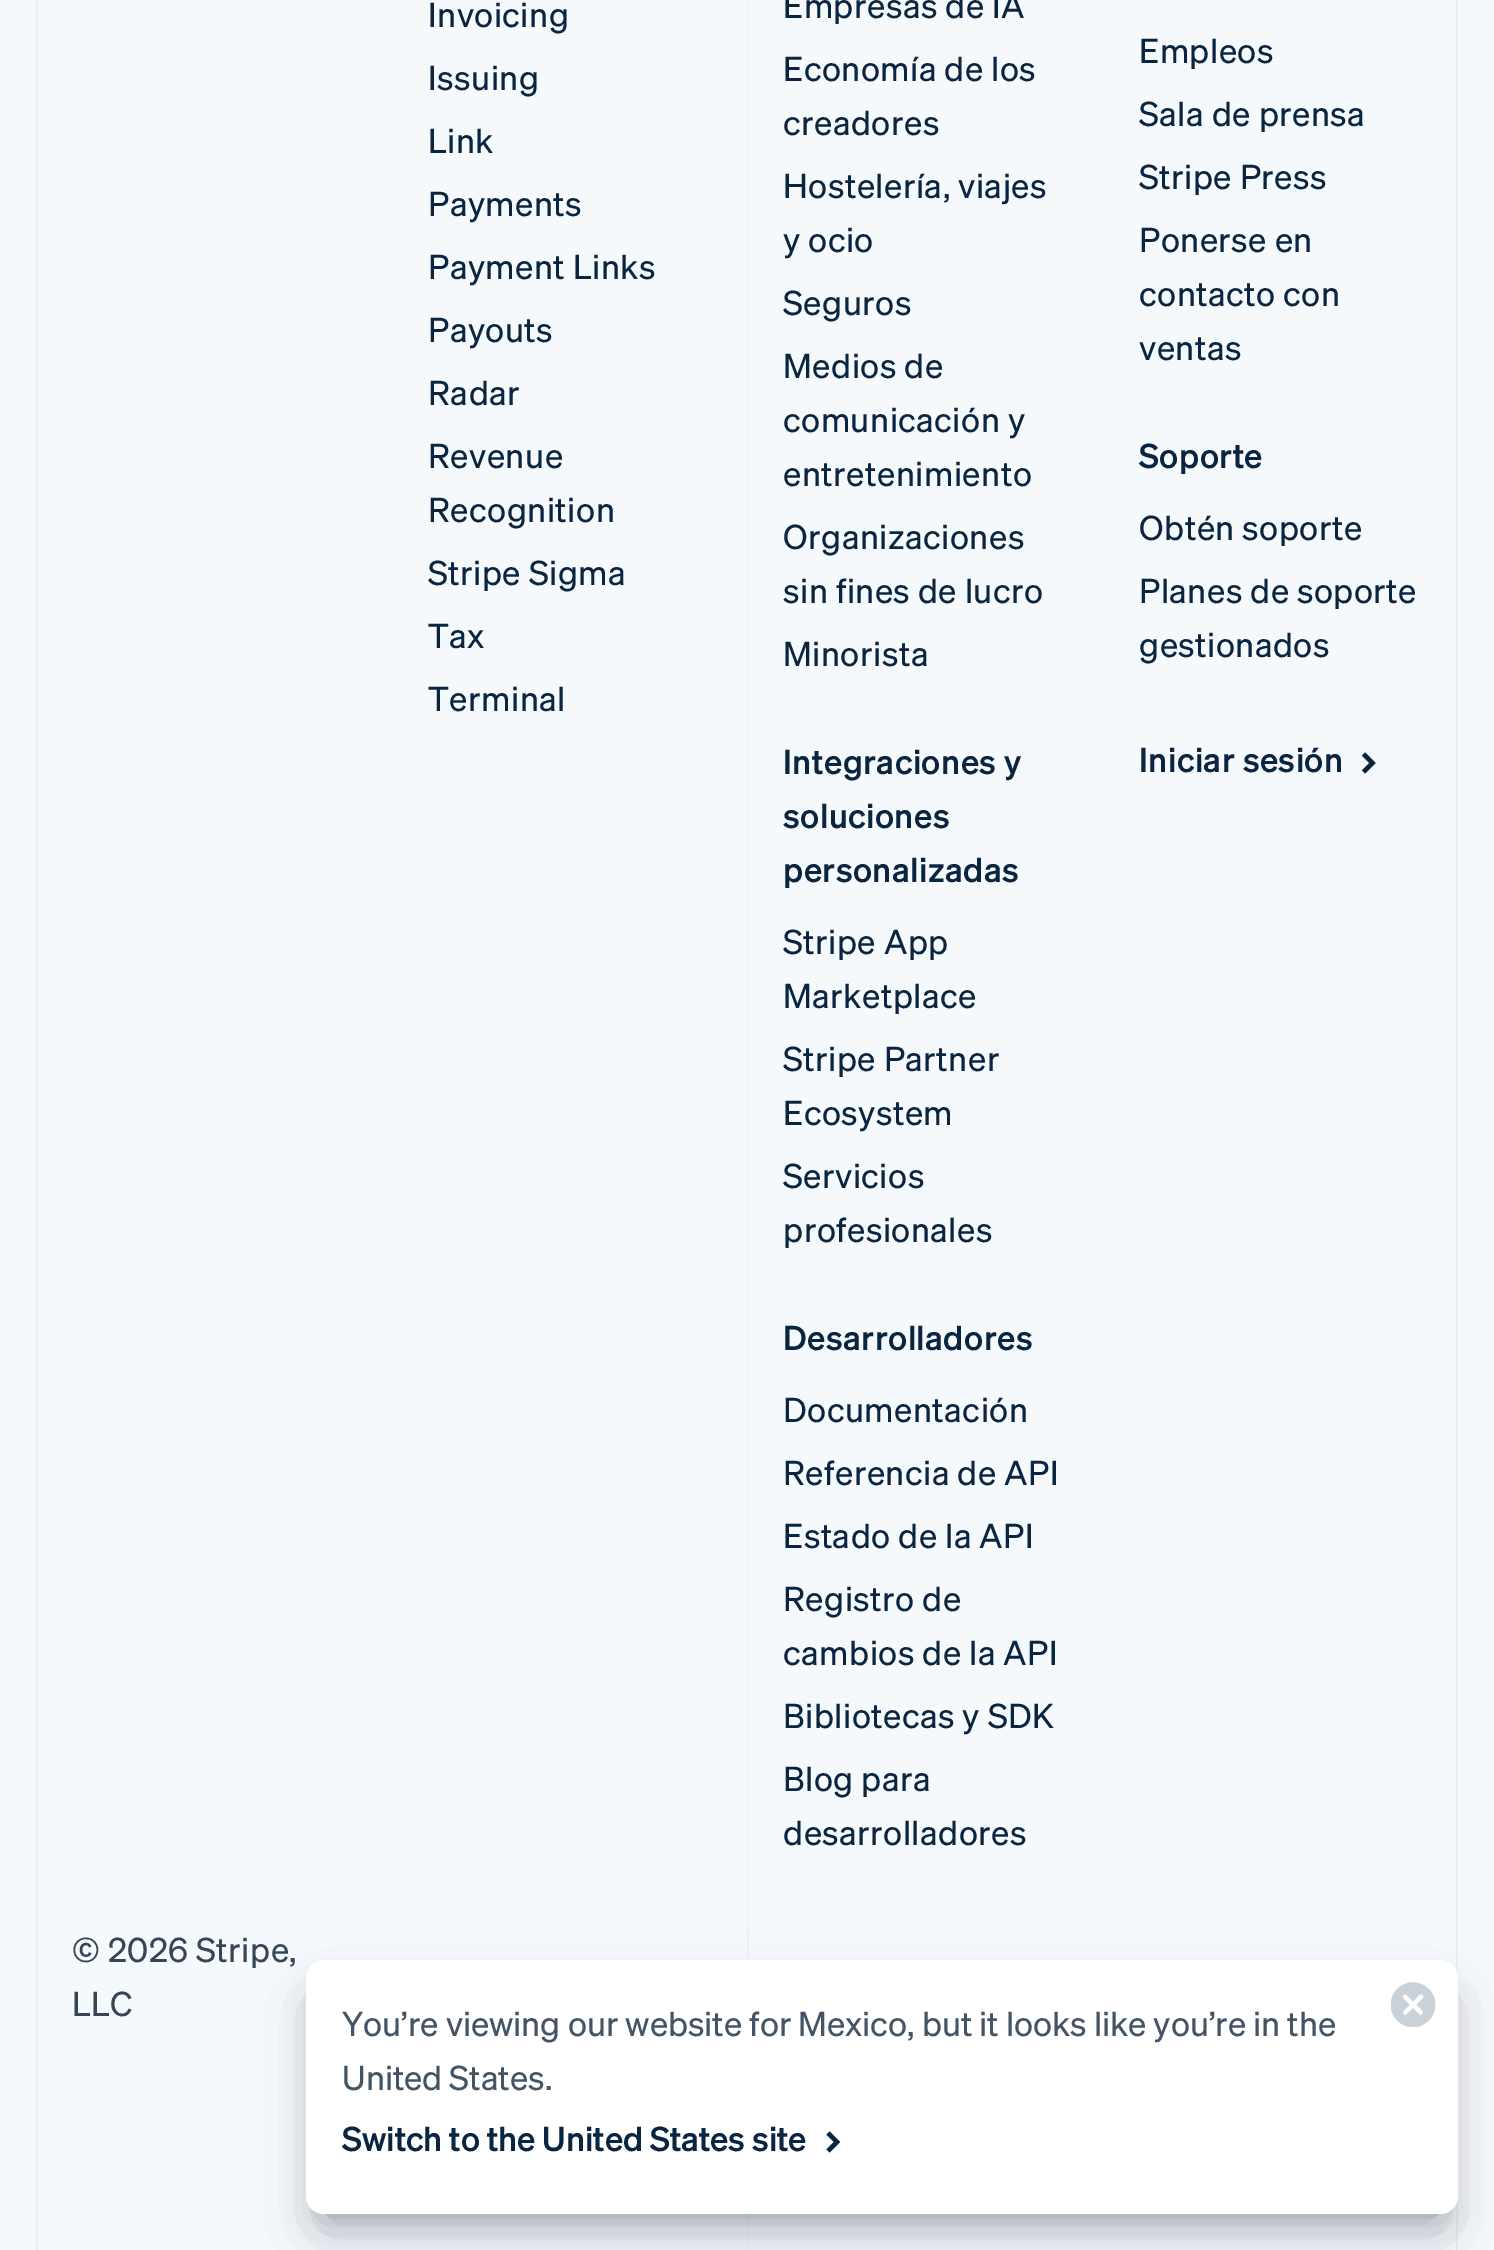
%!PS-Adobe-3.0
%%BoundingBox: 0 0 1494 2250
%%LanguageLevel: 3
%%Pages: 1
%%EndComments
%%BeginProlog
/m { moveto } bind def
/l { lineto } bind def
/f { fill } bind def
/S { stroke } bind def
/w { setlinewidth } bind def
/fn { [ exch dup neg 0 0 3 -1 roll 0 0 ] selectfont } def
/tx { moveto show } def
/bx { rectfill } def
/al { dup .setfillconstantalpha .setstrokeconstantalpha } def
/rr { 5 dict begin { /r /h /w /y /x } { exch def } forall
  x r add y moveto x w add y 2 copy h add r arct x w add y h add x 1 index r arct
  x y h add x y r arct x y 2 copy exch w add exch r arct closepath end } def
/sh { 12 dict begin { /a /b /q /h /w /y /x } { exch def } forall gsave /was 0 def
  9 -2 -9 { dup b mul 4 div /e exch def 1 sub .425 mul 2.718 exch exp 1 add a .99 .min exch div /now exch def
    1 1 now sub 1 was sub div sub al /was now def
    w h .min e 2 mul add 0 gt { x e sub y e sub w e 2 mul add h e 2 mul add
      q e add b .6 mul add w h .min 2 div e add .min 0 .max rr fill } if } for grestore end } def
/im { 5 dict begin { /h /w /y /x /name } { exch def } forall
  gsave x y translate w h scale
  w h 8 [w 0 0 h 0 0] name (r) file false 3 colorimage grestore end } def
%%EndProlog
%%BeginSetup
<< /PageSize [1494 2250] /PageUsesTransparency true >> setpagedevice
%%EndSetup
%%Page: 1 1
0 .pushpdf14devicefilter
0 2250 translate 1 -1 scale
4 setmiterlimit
0.965 0.976 0.988 setrgbcolor
0 0 1494 2250 bx
0.922 0.933 0.957 setrgbcolor
36 0 2 2250 bx
0.937 0.949 0.965 setrgbcolor
747 0 2 2250 bx
0.922 0.933 0.957 setrgbcolor
1456 0 2 2250 bx
/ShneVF-Light 33.75 fn
0.039 0.145 0.251 setrgbcolor
428 27 m 0.5 0 (Invoicing) ashow
428 90 m 0.5 0 (Issuing) ashow
428 153 m 0.5 0 (Link) ashow
428 216 m 0.5 0 (Payments) ashow
428 279 m 0.5 0 (Payment Links) ashow
428 342 m 0.5 0 (Payouts) ashow
428 405 m 0.5 0 (Radar) ashow
428 468 m 0.5 0 (Revenue) ashow
428 522 m 0.5 0 (Recognition) ashow
428 585 m 0.5 0 (Stripe Sigma) ashow
428 648 m 0.5 0 (Tax) ashow
428 711 m 0.5 0 (Terminal) ashow
783 18 m 0.5 0 (Empresas de IA) ashow
783 81 m 0.5 0 (Economía de los) ashow
783 135 m 0.5 0 (creadores) ashow
783 198 m 0.5 0 (Hostelería, viajes) ashow
783 252 m 0.5 0 (y ocio) ashow
783 315 m 0.5 0 (Seguros) ashow
783 378 m 0.5 0 (Medios de) ashow
783 432 m 0.5 0 (comunicación y) ashow
783 486 m 0.5 0 (entretenimiento) ashow
783 549 m 0.5 0 (Organizaciones) ashow
783 603 m 0.5 0 (sin fines de lucro) ashow
783 666 m 0.5 0 (Minorista) ashow
/ShneVF-Regular 33.75 fn
783 774 m 0.5 0 (Integraciones y) ashow
783 828 m 0.5 0 (soluciones) ashow
783 882 m 0.5 0 (personalizadas) ashow
/ShneVF-Light 33.75 fn
783 954 m 0.5 0 (Stripe App) ashow
783 1008 m 0.5 0 (Marketplace) ashow
783 1071 m 0.5 0 (Stripe Partner) ashow
783 1125 m 0.5 0 (Ecosystem) ashow
783 1188 m 0.5 0 (Servicios) ashow
783 1242 m 0.5 0 (profesionales) ashow
/ShneVF-Regular 33.75 fn
783 1350 m 0.5 0 (Desarrolladores) ashow
/ShneVF-Light 33.75 fn
783 1422 m 0.5 0 (Documentación) ashow
783 1485 m 0.5 0 (Referencia de API) ashow
783 1548 m 0.5 0 (Estado de la API) ashow
783 1611 m 0.5 0 (Registro de) ashow
783 1665 m 0.5 0 (cambios de la API) ashow
783 1728 m 0.5 0 (Bibliotecas y SDK) ashow
783 1791 m 0.5 0 (Blog para) ashow
783 1845 m 0.5 0 (desarrolladores) ashow
1139 63 m 0.5 0 (Empleos) ashow
1139 126 m 0.5 0 (Sala de prensa) ashow
1139 189 m 0.5 0 (Stripe Press) ashow
1139 252 m 0.5 0 (Ponerse en) ashow
1139 306 m 0.5 0 (contacto con) ashow
1139 360 m 0.5 0 (ventas) ashow
/ShneVF-Regular 33.75 fn
1139 468 m 0.5 0 (Soporte) ashow
/ShneVF-Light 33.75 fn
1139 540 m 0.5 0 (Obtén soporte) ashow
1139 603 m 0.5 0 (Planes de soporte) ashow
1139 657 m 0.5 0 (gestionados) ashow
/ShneVF-Regular 33.75 fn
1139 772 m 0.5 0 (Iniciar sesión) ashow
4.5 w
1363.5 754 m 1372.5 763 l 1363.5 772 l S
/ShneVF-Light 33.75 fn
0.212 0.275 0.341 setrgbcolor
72 1962 m 0.5 0 (© 2026 Stripe,) ashow
72 2016 m 0.5 0 (LLC) ashow
0 setgray
324 1996 1116 218 0 18 0.3 sh
0.196 0.196 0.365 setrgbcolor
317 2000 1130 232 7 30.5 0.25 sh
1 setgray
306 1960 1152 254 18 rr f
(image0.raw) 1391 1982 45 45 im
0.259 0.329 0.4 setrgbcolor
(You’re viewing our website for Mexico, but it looks like you’re in the) 342 2036 tx
(United States.) 342 2090 tx
/ShneVF-Regular 33.75 fn
0.039 0.145 0.251 setrgbcolor
(Switch to the United States site) 342 2151 tx
828 2133 m 837 2142 l 828 2151 l S
.poppdf14devicefilter showpage
%%EOF
